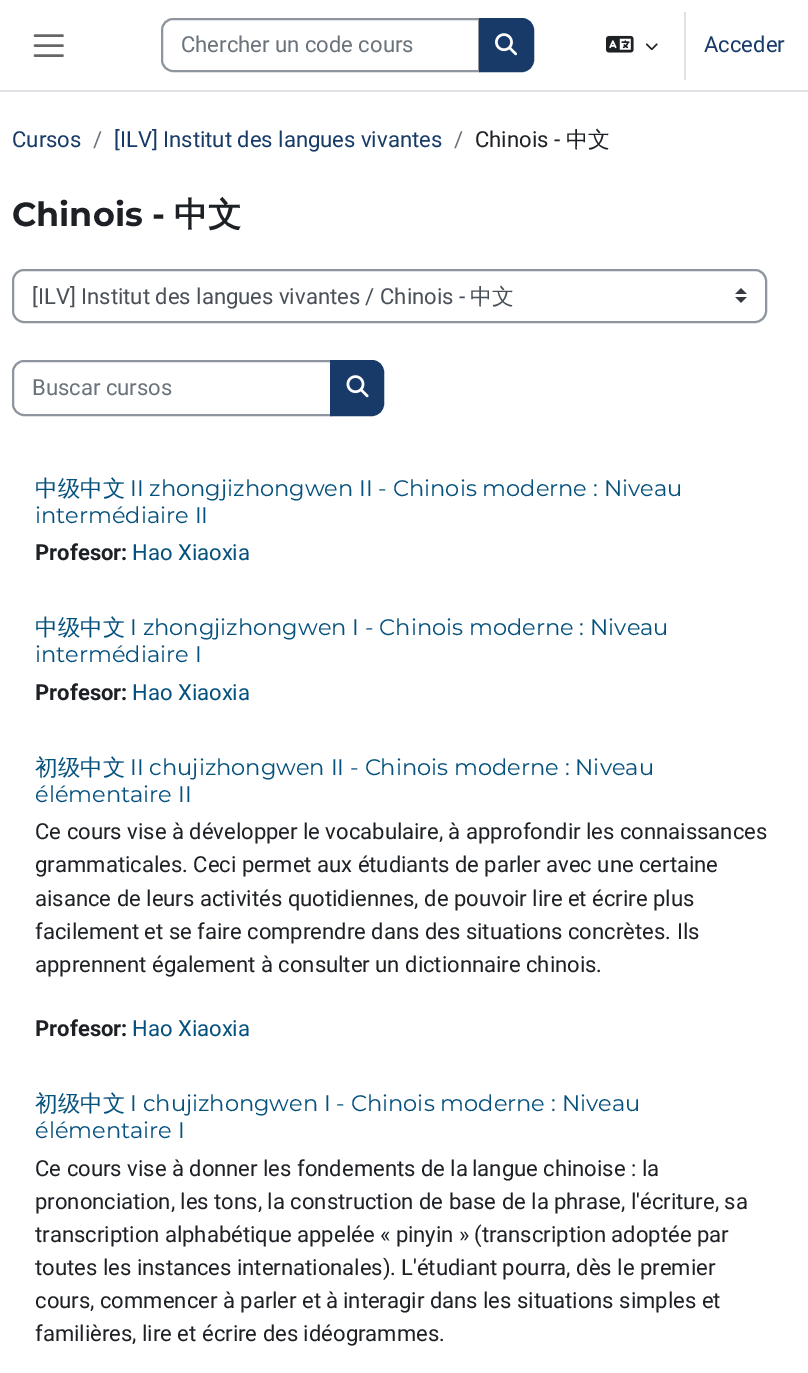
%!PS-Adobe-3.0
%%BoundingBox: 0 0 808 1373
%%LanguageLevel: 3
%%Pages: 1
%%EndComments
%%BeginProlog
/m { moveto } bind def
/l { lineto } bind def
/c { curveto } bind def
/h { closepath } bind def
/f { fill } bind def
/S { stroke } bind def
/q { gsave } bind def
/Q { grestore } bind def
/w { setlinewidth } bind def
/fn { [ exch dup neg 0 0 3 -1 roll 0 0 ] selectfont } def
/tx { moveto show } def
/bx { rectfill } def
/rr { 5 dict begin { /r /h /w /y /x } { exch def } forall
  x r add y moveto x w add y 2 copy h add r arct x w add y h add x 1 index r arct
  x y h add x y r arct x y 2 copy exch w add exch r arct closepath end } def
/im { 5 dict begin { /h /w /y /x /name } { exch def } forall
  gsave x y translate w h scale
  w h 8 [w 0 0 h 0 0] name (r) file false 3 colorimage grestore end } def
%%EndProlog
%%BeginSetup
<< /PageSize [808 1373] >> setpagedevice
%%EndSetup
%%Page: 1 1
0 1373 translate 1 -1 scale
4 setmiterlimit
1 setgray
0 0 808 1373 bx
0.871 0.886 0.902 setrgbcolor
0 90 808 2 bx
0.4 setgray
2.5 w
1 setlinecap
35 35.5 m 62.5 35.5 l 35 45.5 m 62.5 45.5 l 35 55.5 m 62.5 55.5 l S
0.561 0.584 0.62 setrgbcolor
2 w
0 setlinecap
173 19 m 479 19 l 479 71 l 173 71 l 167 71 162 66 162 60 c 162 30 l 162 24 167 19 173 19 c h S
/Roboto-Regular 22.05 fn
0.416 0.451 0.482 setrgbcolor
(Chercher un code cours) 181 52 tx
0.09 0.227 0.412 setrgbcolor
480 19 m 522 19 l 528 19 533 24 533 30 c 533 60 l 533 66 528 71 522 71 c 480 71 l h q f Q
S
(image0.raw) 495 33 22 23 im
(image1.raw) 606 35 28 18 im
(image2.raw) 645 43 13 8 im
0.871 0.886 0.902 setrgbcolor
684 12 2 68 bx
0.09 0.227 0.412 setrgbcolor
(Acceder) 704 52 tx
(Cursos) 12 147 tx
0.416 0.451 0.482 setrgbcolor
(/) 93 147 tx
0.09 0.227 0.412 setrgbcolor
([ILV] Institut des langues vivantes) 114 147 tx
0.416 0.451 0.482 setrgbcolor
(/) 454 147 tx
0.114 0.129 0.145 setrgbcolor
(Chinois -) 475 147 tx
/WenQuanYiZenHei-Medium 22.05 fn
(中文) 566 147 tx
/Montserrat-Bold 33.5 fn
(Chinois -) 12 226 tx
/WenQuanYiZenHei-Bold 33.5 fn
(中文) 174 226 tx
(image3.raw) 735 288 12 15 im
0.561 0.584 0.62 setrgbcolor
13 270 753 52 11 rr S
/Roboto-Regular 22.05 fn
0.286 0.314 0.341 setrgbcolor
([ILV] Institut des langues vivantes / Chinois -) 32 304 tx
/WenQuanYiZenHei-Medium 22.05 fn
(中文) 470 304 tx
0.561 0.584 0.62 setrgbcolor
24 361 m 331 361 l 331 415 l 24 415 l 18 415 13 410 13 404 c 13 372 l 13 366 18 361 24 361 c h S
/Roboto-Regular 22.05 fn
0.416 0.451 0.482 setrgbcolor
(Buscar cursos) 32 395 tx
0.09 0.227 0.412 setrgbcolor
331 361 m 372 361 l 378 361 383 366 383 372 c 383 404 l 383 410 378 415 372 415 c 331 415 l h q f Q
S
(image4.raw) 346 375 23 23 im
/WenQuanYiZenHei-Medium 22.5 fn
0.02 0.318 0.494 setrgbcolor
(中级中文) 35 496 tx
/Montserrat-Regular 22.5 fn
(II zhongjizhongwen II - Chinois moderne : Niveau) 130 496 tx
(intermédiaire II) 35 523 tx
/Roboto-Bold 22.05 fn
0.114 0.129 0.145 setrgbcolor
(Profesor:) 35 560 tx
/Roboto-Regular 22.05 fn
0.02 0.318 0.494 setrgbcolor
(Hao Xiaoxia) 132 560 tx
/WenQuanYiZenHei-Medium 22.5 fn
(中级中文) 35 635 tx
/Montserrat-Regular 22.5 fn
(I zhongjizhongwen I - Chinois moderne : Niveau) 130 635 tx
(intermédiaire I) 35 662 tx
/Roboto-Bold 22.05 fn
0.114 0.129 0.145 setrgbcolor
(Profesor:) 35 700 tx
/Roboto-Regular 22.05 fn
0.02 0.318 0.494 setrgbcolor
(Hao Xiaoxia) 132 700 tx
/WenQuanYiZenHei-Medium 22.5 fn
(初级中文) 35 775 tx
/Montserrat-Regular 22.5 fn
(II chujizhongwen II - Chinois moderne : Niveau) 130 775 tx
(élémentaire II) 35 802 tx
/Roboto-Regular 22.05 fn
0.114 0.129 0.145 setrgbcolor
(Ce cours vise à développer le vocabulaire, à approfondir les connaissances) 35 839 tx
(grammaticales. Ceci permet aux étudiants de parler avec une certaine) 35 872 tx
(aisance de leurs activités quotidiennes, de pouvoir lire et écrire plus) 35 906 tx
(facilement et se faire comprendre dans des situations concrètes. Ils) 35 939 tx
(apprennent également à consulter un dictionnaire chinois.) 35 972 tx
/Roboto-Bold 22.05 fn
(Profesor:) 35 1036 tx
/Roboto-Regular 22.05 fn
0.02 0.318 0.494 setrgbcolor
(Hao Xiaoxia) 132 1036 tx
/WenQuanYiZenHei-Medium 22.5 fn
(初级中文) 35 1111 tx
/Montserrat-Regular 22.5 fn
(I chujizhongwen I - Chinois moderne : Niveau) 130 1111 tx
(élémentaire I) 35 1138 tx
/Roboto-Regular 22.05 fn
0.114 0.129 0.145 setrgbcolor
(Ce cours vise à donner les fondements de la) 35 1176 tx
(langue chinoise : la) 472 1176 tx
(prononciation, les tons, la construction de base de la phrase, l'écriture, sa) 35 1209 tx
(transcription alphabétique appelée « pinyin ») 35 1242 tx
(\(transcription adoptée par) 474 1242 tx
(toutes les instances internationales\).) 35 1275 tx
(L'étudiant pourra, dès le premier) 401 1275 tx
(cours, commencer à parler et à) 35 1308 tx
(interagir dans les situations simples et) 343 1308 tx
(familières, lire et écrire des idéogrammes.) 35 1341 tx
showpage
%%EOF
